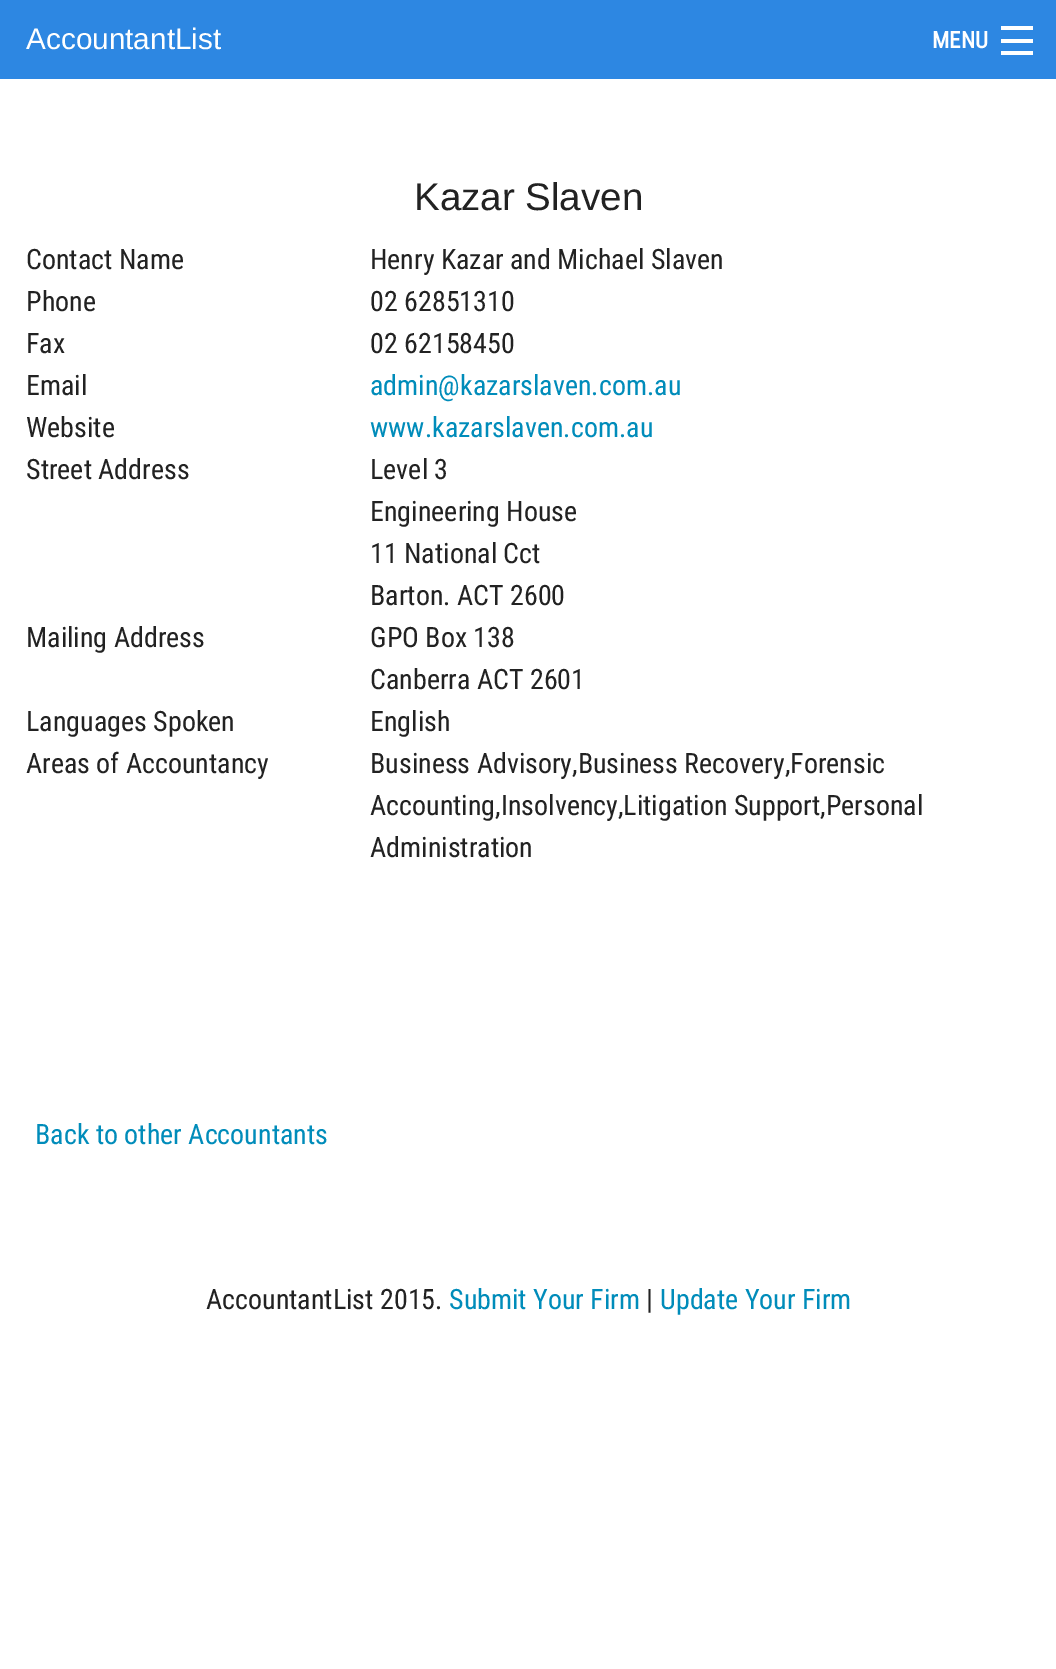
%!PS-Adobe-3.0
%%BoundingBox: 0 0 1056 1669
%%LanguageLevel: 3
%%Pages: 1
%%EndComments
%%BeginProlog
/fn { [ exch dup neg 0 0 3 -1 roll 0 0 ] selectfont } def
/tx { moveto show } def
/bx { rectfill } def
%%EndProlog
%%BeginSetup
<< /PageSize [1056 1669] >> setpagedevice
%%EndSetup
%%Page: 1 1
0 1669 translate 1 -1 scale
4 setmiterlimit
1 setgray
0 0 1056 1669 bx
0.176 0.529 0.886 setrgbcolor
0 0 1056 79 bx
/LiberationSans-Regular 29.75 fn
1 setgray
(AccountantList) 26 49 tx
/RobotoCondensed-Bold 23 fn
(MENU) 932 48 tx
1001 51 32 4 bx
1001 39 32 4 bx
1001 26 32 4 bx
/LiberationSans-Regular 38.5 fn
0.133 setgray
(Kazar Slaven) 414 210 tx
/RobotoCondensed-Regular 28 fn
(Contact Name) 26 269 tx
(Henry Kazar and Michael Slaven) 370 269 tx
(Phone) 26 311 tx
(02 62851310) 370 311 tx
(Fax) 26 353 tx
(02 62158450) 370 353 tx
(Email) 26 395 tx
0 0.549 0.729 setrgbcolor
(admin@kazarslaven.com.au) 370 395 tx
0.133 setgray
(Website) 26 437 tx
0 0.549 0.729 setrgbcolor
(www.kazarslaven.com.au) 370 437 tx
0.133 setgray
(Street Address) 26 479 tx
(Level 3) 370 479 tx
(Engineering House) 370 521 tx
(11 National Cct) 370 563 tx
(Barton. ACT 2600) 370 605 tx
(Mailing Address) 26 647 tx
(GPO Box 138) 370 647 tx
(Canberra ACT 2601) 370 689 tx
(Languages Spoken) 26 731 tx
(English) 370 731 tx
(Areas of Accountancy) 26 773 tx
(Business Advisory,Business Recovery,Forensic) 370 773 tx
(Accounting,Insolvency,Litigation Support,Personal) 370 815 tx
(Administration) 370 857 tx
0 0.549 0.729 setrgbcolor
(Back to other Accountants) 35 1144 tx
0.133 setgray
(AccountantList 2015.) 206 1309 tx
0 0.549 0.729 setrgbcolor
(Submit Your Firm) 449 1309 tx
0.133 setgray
(|) 646 1309 tx
0 0.549 0.729 setrgbcolor
(Update Your Firm) 660 1309 tx
showpage
%%EOF
